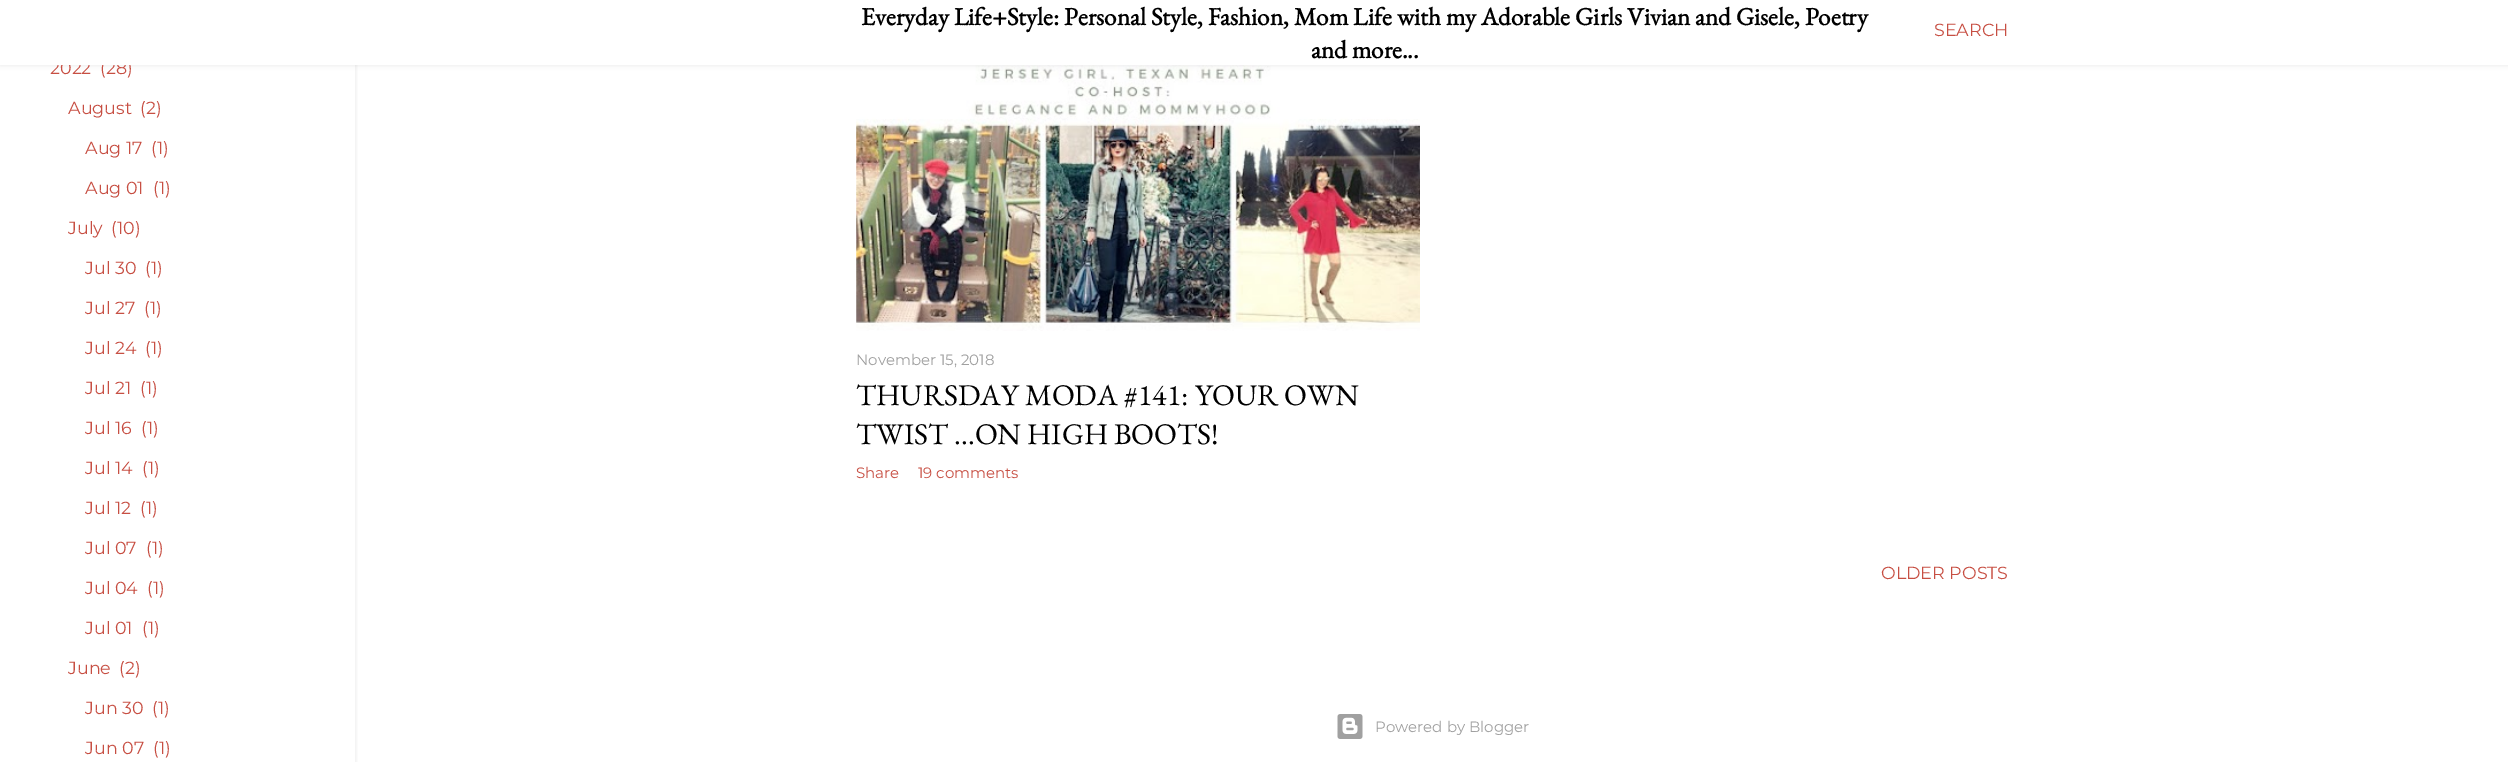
%!PS-Adobe-3.0
%%BoundingBox: 0 0 2508 762
%%LanguageLevel: 3
%%Pages: 1
%%EndComments
%%BeginProlog
/q { gsave } bind def
/Q { grestore } bind def
/fn { [ exch dup neg 0 0 3 -1 roll 0 0 ] selectfont } def
/tx { moveto show } def
/bx { rectfill } def
/al { dup .setfillconstantalpha .setstrokeconstantalpha } def
/rr { 5 dict begin { /r /h /w /y /x } { exch def } forall
  x r add y moveto x w add y 2 copy h add r arct x w add y h add x 1 index r arct
  x y h add x y r arct x y 2 copy exch w add exch r arct closepath end } def
/sh { 12 dict begin { /a /b /q /h /w /y /x } { exch def } forall gsave /was 0 def
  9 -2 -9 { dup b mul 4 div /e exch def 1 sub .425 mul 2.718 exch exp 1 add a .99 .min exch div /now exch def
    1 1 now sub 1 was sub div sub al /was now def
    w h .min e 2 mul add 0 gt { x e sub y e sub w e 2 mul add h e 2 mul add
      q e add b .6 mul add w h .min 2 div e add .min 0 .max rr fill } if } for grestore end } def
/im { 5 dict begin { /h /w /y /x /name } { exch def } forall
  gsave x y translate w h scale
  w h 8 [w 0 0 h 0 0] name (r) file false 3 colorimage grestore end } def
%%EndProlog
%%BeginSetup
<< /PageSize [2508 762] /PageUsesTransparency true >> setpagedevice
%%EndSetup
%%Page: 1 1
0 .pushpdf14devicefilter
0 762 translate 1 -1 scale
4 setmiterlimit
1 setgray
0 0 2508 762 bx
(image0.raw) 856 65 564 266 im
0.31 setgray
0 1 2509 65 0 2 0.1 sh
q
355 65 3 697 rectclip
1 -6 355 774 0 2 0.1 sh
Q
/Montserrat-Regular 17.5 fn
0.78 0.31 0.263 setrgbcolor
(2022) 50 74 tx
(\(28\)) 100 74 tx
1 setgray
0 0 2508 65 bx
/EBGaramond-Bold 25 fn
0 setgray
(Everyday Life+Style: Personal Style, Fashion, Mom Life with my Adorable Girls Vivian and Gisele, Poetry) 861 25 tx
(and more...) 1311 58 tx
/Montserrat-Regular 17.5 fn
0.78 0.31 0.263 setrgbcolor
(SEARCH) 1934 36 tx
(August) 68 114 tx
(\(2\)) 140 114 tx
(Aug 17) 85 154 tx
(\(1\)) 151 154 tx
(Aug 01) 85 194 tx
(\(1\)) 153 194 tx
(July) 68 234 tx
(\(10\)) 111 234 tx
(Jul 30) 85 274 tx
(\(1\)) 145 274 tx
(Jul 27) 85 314 tx
(\(1\)) 144 314 tx
(Jul 24) 85 354 tx
(\(1\)) 145 354 tx
(Jul 21) 85 394 tx
(\(1\)) 140 394 tx
(Jul 16) 85 434 tx
(\(1\)) 141 434 tx
(Jul 14) 85 474 tx
(\(1\)) 142 474 tx
(Jul 12) 85 514 tx
(\(1\)) 140 514 tx
(Jul 07) 85 554 tx
(\(1\)) 146 554 tx
(Jul 04) 85 594 tx
(\(1\)) 147 594 tx
(Jul 01) 85 634 tx
(\(1\)) 142 634 tx
(June) 68 674 tx
(\(2\)) 119 674 tx
(Jun 30) 85 714 tx
(\(1\)) 152 714 tx
(Jun 07) 85 754 tx
(\(1\)) 153 754 tx
/Montserrat-Regular 15 fn
0.627 setgray
(November 15, 2018) 856 365 tx
/EBGaramond-Regular 30 fn
0 setgray
(THURSDAY MODA #141: YOUR OWN) 856 405 tx
(TWIST ...ON HIGH BOOTS!) 856 444 tx
/Montserrat-Regular 15 fn
0.78 0.31 0.263 setrgbcolor
(Share) 856 478 tx
(19 comments) 918 478 tx
/Montserrat-Regular 17.5 fn
(OLDER POSTS) 1881 579 tx
(image1.raw) 1337 714 26 25 im
/Montserrat-Regular 15 fn
0.627 setgray
(Powered by Blogger) 1375 732 tx
.poppdf14devicefilter showpage
%%EOF
